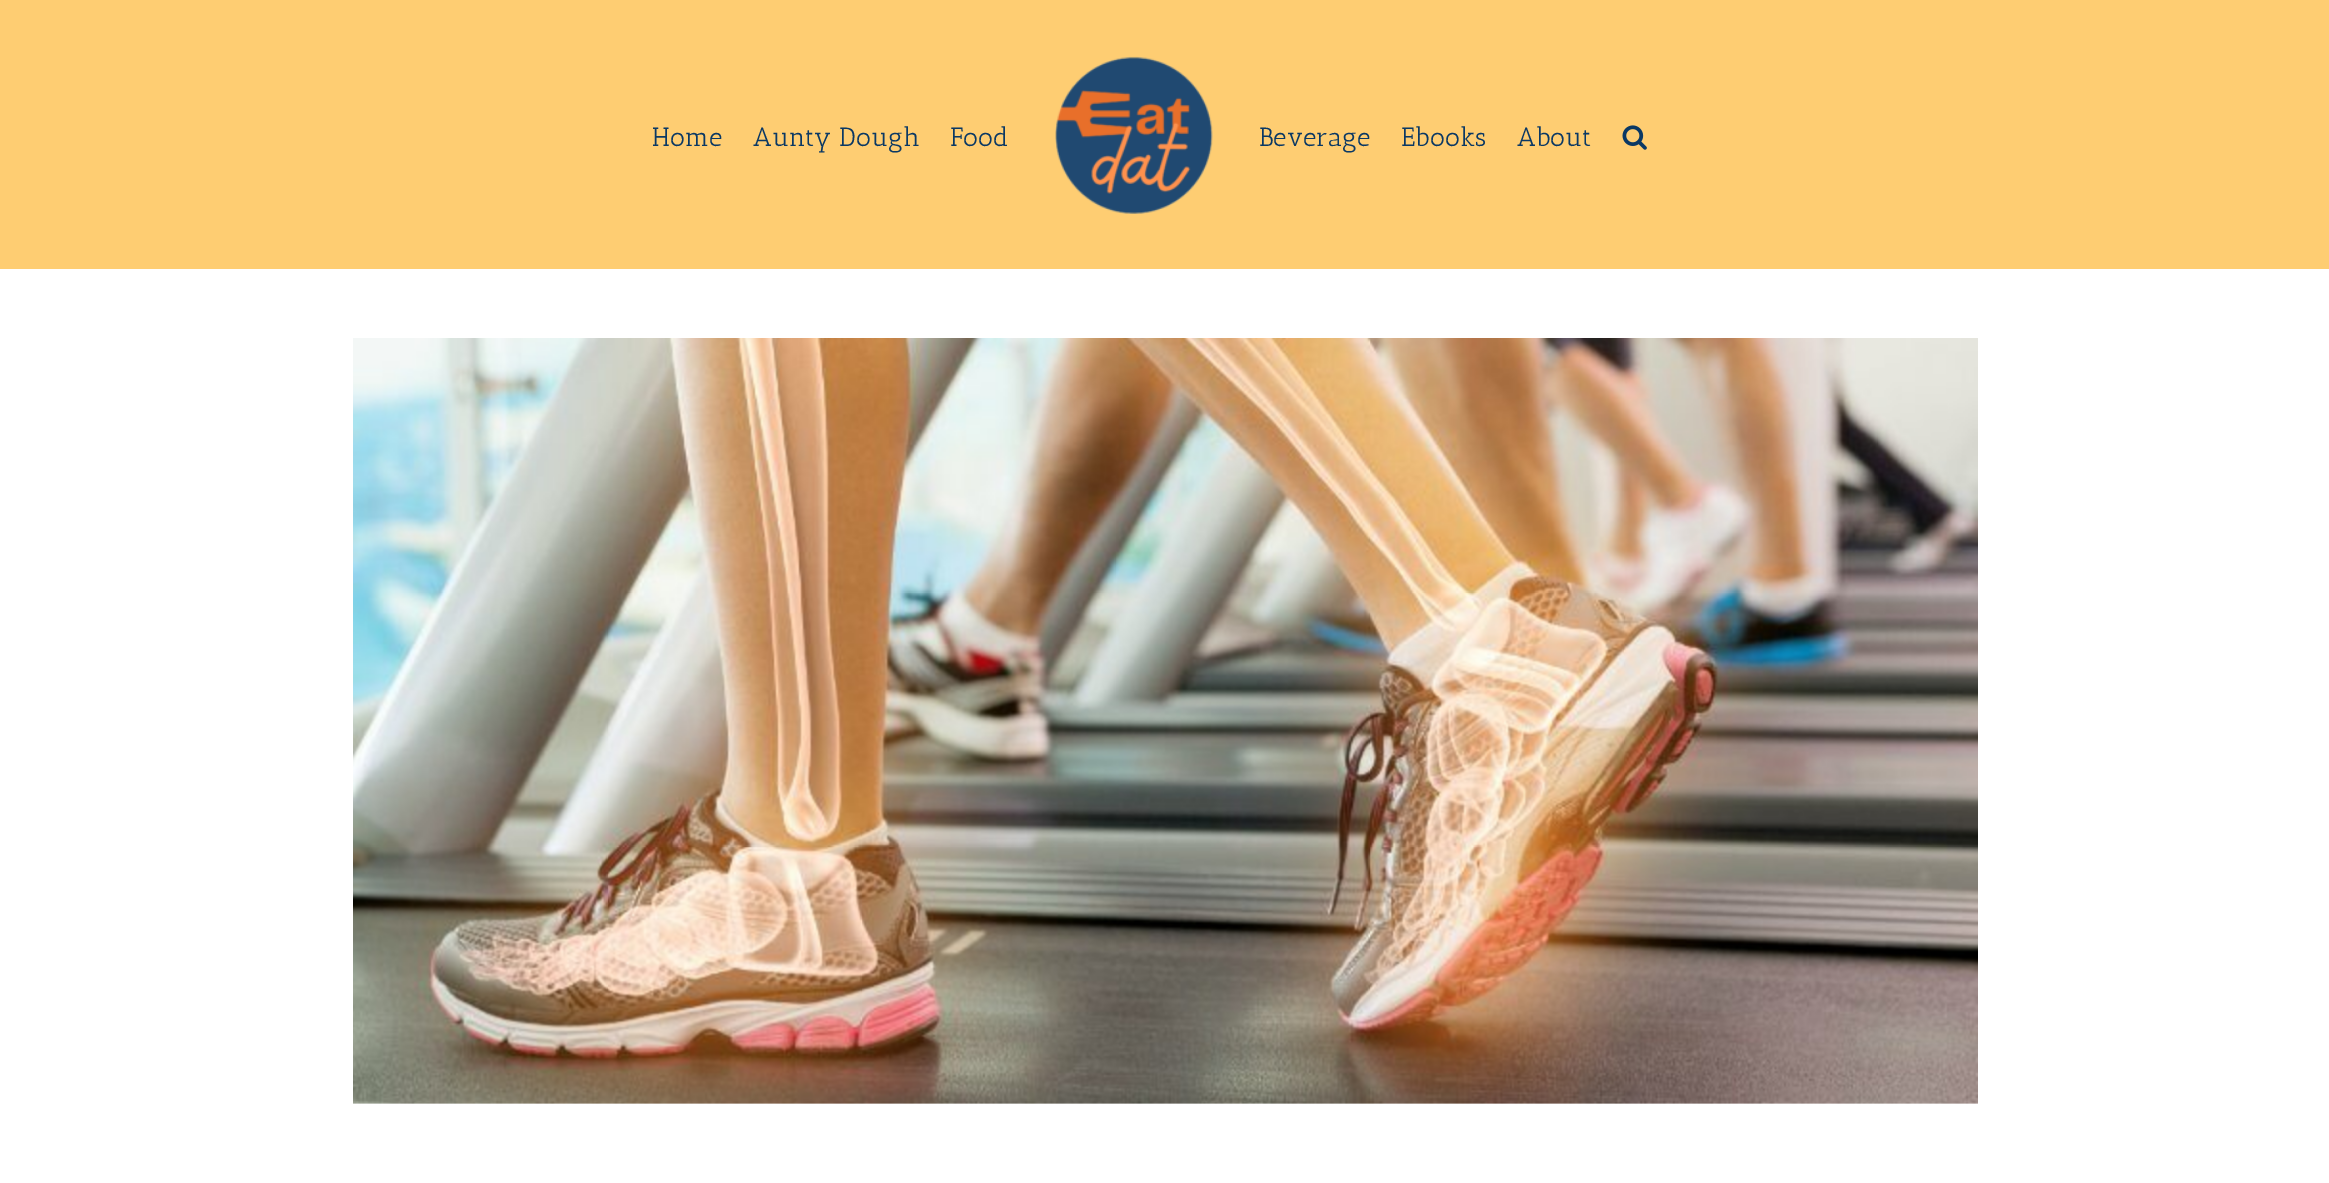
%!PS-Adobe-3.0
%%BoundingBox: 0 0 2329 1183
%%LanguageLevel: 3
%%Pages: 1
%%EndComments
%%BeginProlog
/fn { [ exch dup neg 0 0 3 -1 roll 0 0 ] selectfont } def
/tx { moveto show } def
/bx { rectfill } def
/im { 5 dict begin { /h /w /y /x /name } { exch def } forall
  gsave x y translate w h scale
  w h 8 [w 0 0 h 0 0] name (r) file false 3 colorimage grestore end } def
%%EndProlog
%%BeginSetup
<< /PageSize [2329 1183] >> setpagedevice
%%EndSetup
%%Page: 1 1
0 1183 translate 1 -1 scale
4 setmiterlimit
1 setgray
0 0 2329 1183 bx
0.996 0.804 0.447 setrgbcolor
0 0 2329 269 bx
/AnticSlab-Regular 26.25 fn
0.039 0.22 0.392 setrgbcolor
(Home) 652 146 tx
(Aunty Dough) 753 146 tx
(Food) 950 146 tx
(image0.raw) 1055 56 158 158 im
(Beverage) 1259 146 tx
(Ebooks) 1401 146 tx
(About) 1517 146 tx
(image1.raw) 1622 125 25 25 im
(image2.raw) 353 338 1625 766 im
showpage
%%EOF
